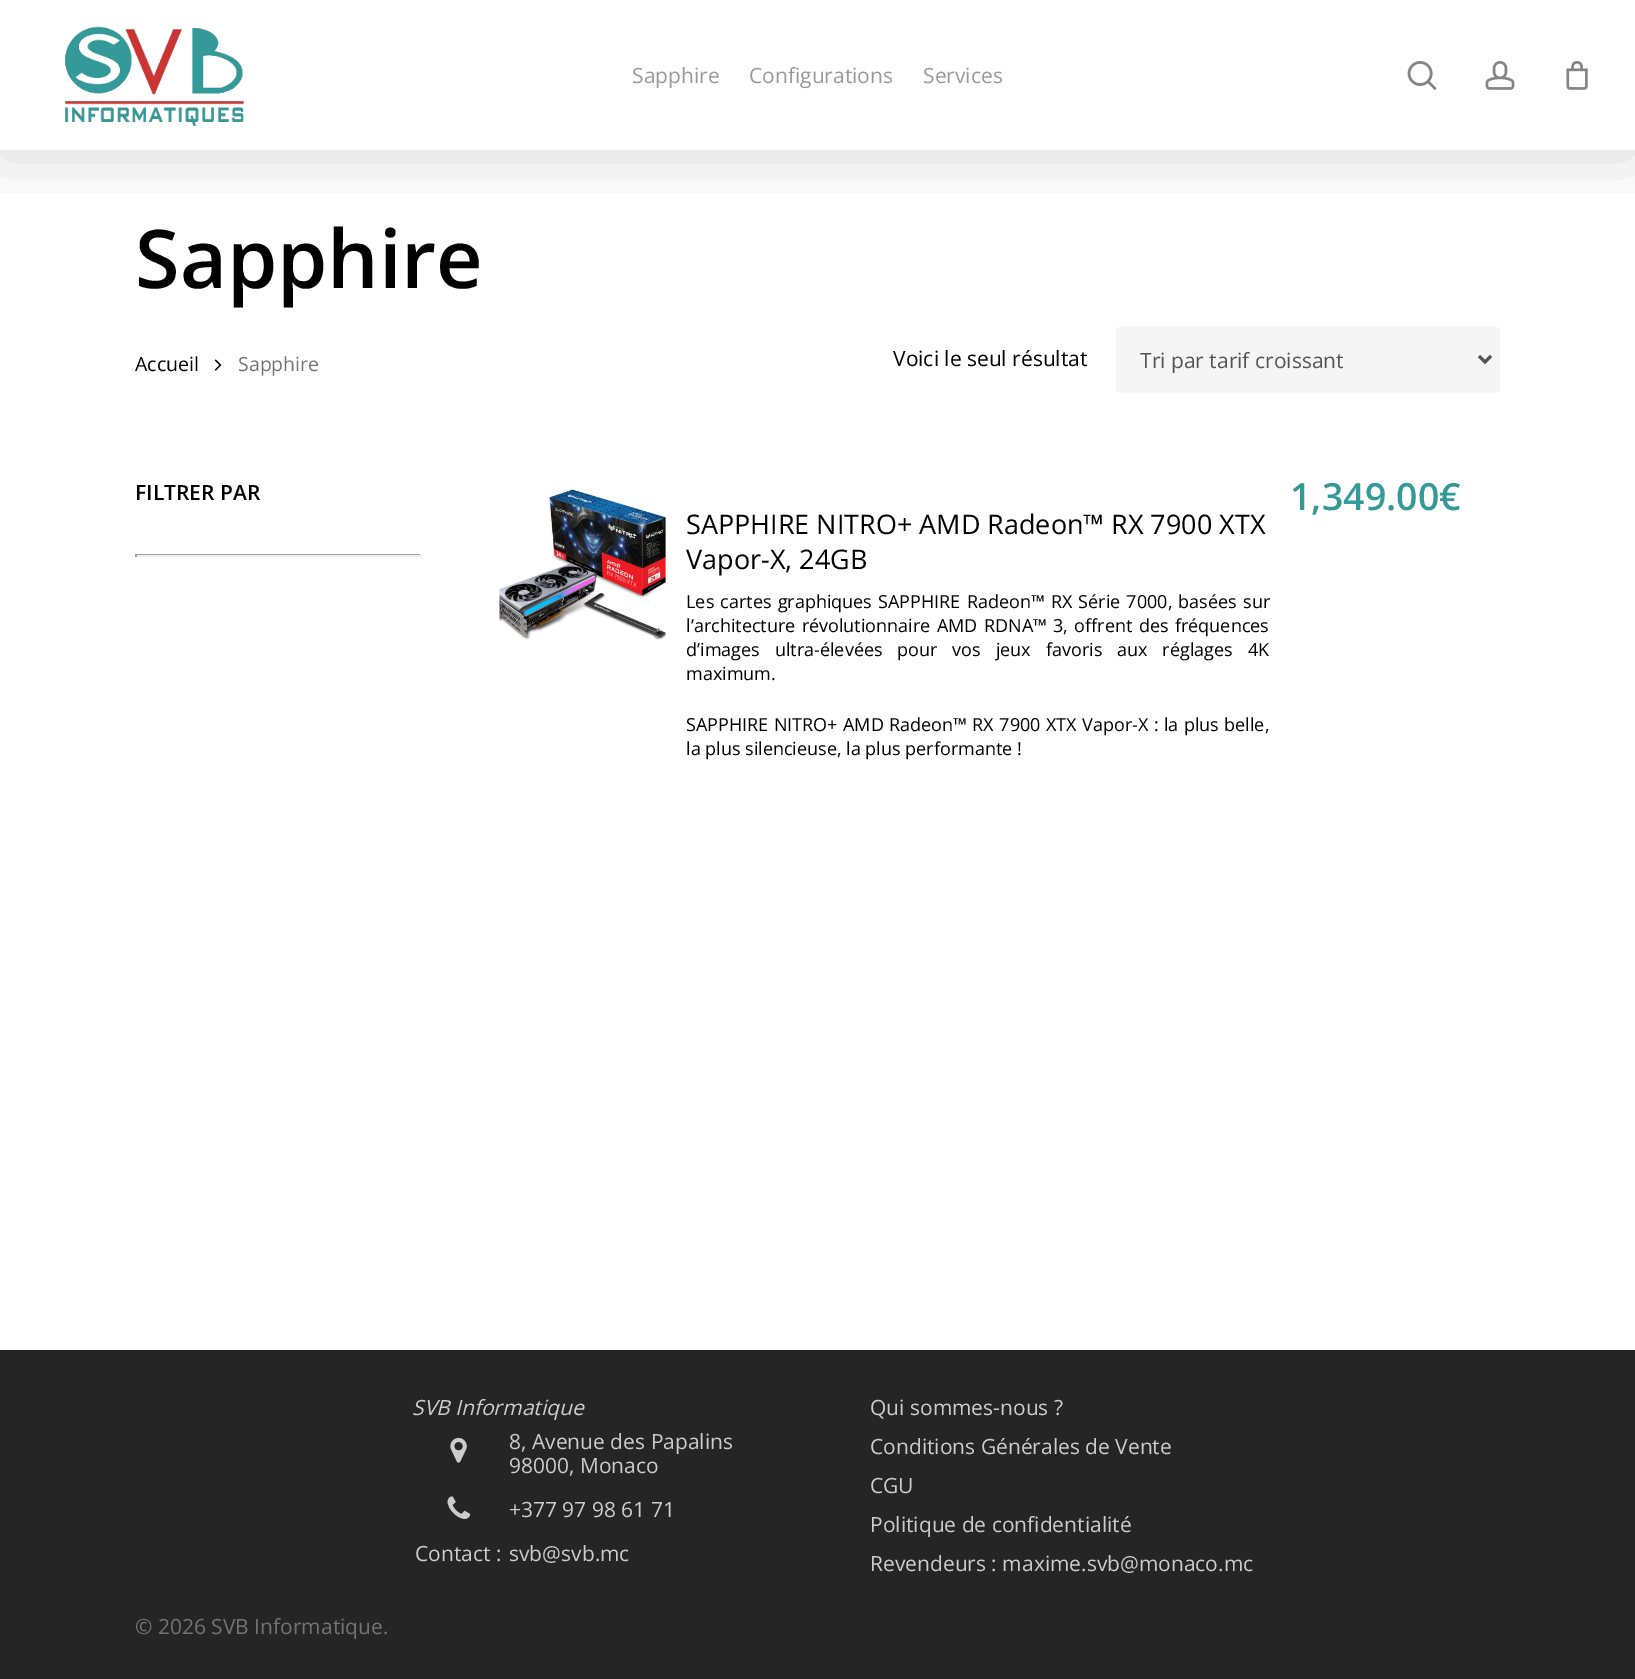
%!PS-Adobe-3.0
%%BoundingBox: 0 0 1635 1679
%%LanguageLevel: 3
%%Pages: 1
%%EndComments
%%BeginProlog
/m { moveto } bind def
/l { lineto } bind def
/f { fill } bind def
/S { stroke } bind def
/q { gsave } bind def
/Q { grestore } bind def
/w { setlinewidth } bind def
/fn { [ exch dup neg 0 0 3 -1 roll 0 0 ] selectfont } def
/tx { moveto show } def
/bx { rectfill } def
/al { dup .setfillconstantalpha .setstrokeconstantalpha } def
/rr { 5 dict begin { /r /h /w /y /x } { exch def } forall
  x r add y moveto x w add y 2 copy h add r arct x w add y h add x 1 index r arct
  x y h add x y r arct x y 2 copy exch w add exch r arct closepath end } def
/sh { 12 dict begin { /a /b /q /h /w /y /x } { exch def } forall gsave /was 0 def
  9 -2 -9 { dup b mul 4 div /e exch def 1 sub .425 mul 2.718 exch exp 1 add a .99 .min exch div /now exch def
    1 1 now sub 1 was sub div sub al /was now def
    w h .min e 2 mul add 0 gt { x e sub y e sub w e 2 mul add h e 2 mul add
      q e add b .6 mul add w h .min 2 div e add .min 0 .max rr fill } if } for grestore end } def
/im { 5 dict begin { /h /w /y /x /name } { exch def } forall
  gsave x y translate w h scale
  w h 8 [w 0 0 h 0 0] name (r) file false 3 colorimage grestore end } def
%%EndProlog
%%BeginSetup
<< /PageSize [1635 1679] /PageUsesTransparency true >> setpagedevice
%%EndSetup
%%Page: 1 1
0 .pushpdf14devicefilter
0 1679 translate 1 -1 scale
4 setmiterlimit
1 setgray
0 0 1635 1679 bx
q
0 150 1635 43 rectclip
0 setgray
0 5 1635 150 0 34 0.15 sh
Q
(image0.raw) 65 26 179 100 im
/OpenSans-Regular 21 fn
0.6 setgray
(Sapphire) 632 83 tx
(Configurations) 749 83 tx
(Services) 923 83 tx
(image1.raw) 1407 61 30 29 im
(image2.raw) 1485 61 30 29 im
(image3.raw) 1566 61 22 29 im
/OpenSans-SemiBold 81 fn
0 setgray
(Sapphire) 135 288 tx
/OpenSans-Regular 19.5 fn
(Accueil) 135 371 tx
(image4.raw) 214 359 8 12 im
0.451 setgray
(Sapphire) 238 371 tx
/OpenSans-Regular 21 fn
0 setgray
(Voici le seul résultat) 893 366 tx
0.961 setgray
1116 326 384 67 6 rr f
0.333 setgray
3 w
1479 356 m 1485 362 l 1491 356 l S
(Tri par tarif croissant) 1140 368 tx
/OpenSans-SemiBold 21 fn
0 setgray
(FILTRER PAR) 135 500 tx
0.624 setgray
135 554 287 1 bx
0.933 setgray
420 554 2 3 bx
135 555 287 2 bx
0.624 setgray
135 554 2 3 bx
(image5.raw) 499 487 167 153 im
/OpenSans-Regular 27 fn
0 setgray
(SAPPHIRE NITRO+ AMD Radeon™ RX 7900 XTX) 686 534 tx
(Vapor-X, 24GB) 686 569 tx
/OpenSans-Regular 18 fn
686 608 m 1.5 0 32 (Les cartes graphiques SAPPHIRE Radeon™ RX Série 7000, basées sur) widthshow
686 632 m 1.75 0 32 (l’architecture révolutionnaire AMD RDNA™ 3, offrent des fréquences) widthshow
686 656 m 10.25 0 32 (d’images ultra-élevées pour vos jeux favoris aux réglages 4K) widthshow
(maximum.) 686 680 tx
686 731 m 0.75 0 32 (SAPPHIRE NITRO+ AMD Radeon™ RX 7900 XTX Vapor-X : la plus belle,) widthshow
(la plus silencieuse, la plus performante !) 686 755 tx
/OpenSans-SemiBold 37.5 fn
0.2 0.6 0.6 setrgbcolor
(1,349.00€) 1290 510 tx
0.145 setgray
0 1350 1635 329 bx
/OpenSans-Italic 21 fn
0.8 setgray
(SVB Informatique) 412 1415 tx
(image6.raw) 450 1437 17 26 im
/OpenSans-Regular 21 fn
(8, Avenue des Papalins) 509 1449 tx
(98000, Monaco) 509 1473 tx
(image7.raw) 447 1496 24 23 im
(+377 97 98 61 71) 509 1517 tx
(Contact :) 415 1561 tx
(svb@svb.mc) 509 1561 tx
(Qui sommes-nous ?) 870 1415 tx
(Conditions Générales de Vente) 870 1454 tx
(CGU) 870 1493 tx
(Politique de confidentialité) 870 1532 tx
(Revendeurs : maxime.svb@monaco.mc) 870 1571 tx
0.451 setgray
(© 2026 SVB Informatique.) 135 1634 tx
.poppdf14devicefilter showpage
%%EOF
